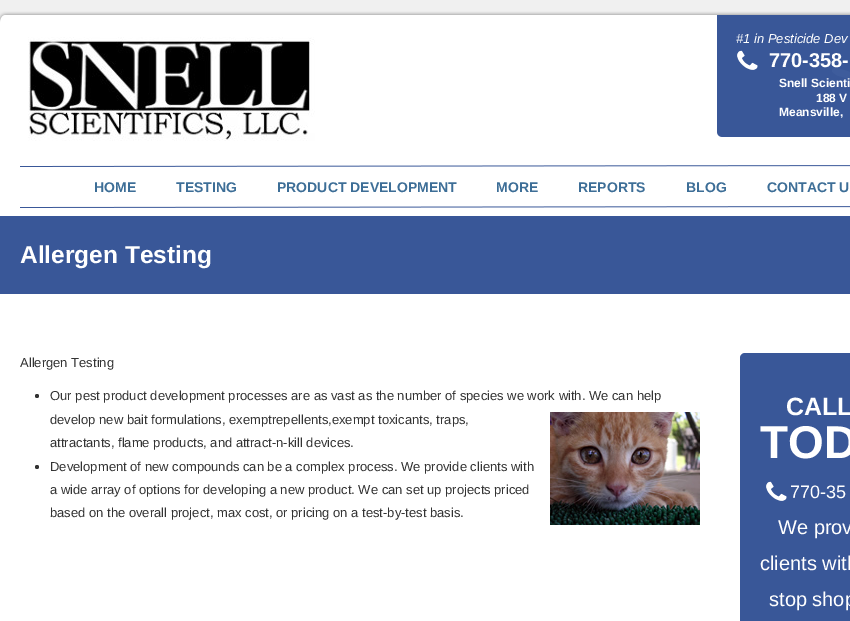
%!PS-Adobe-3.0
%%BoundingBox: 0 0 850 621
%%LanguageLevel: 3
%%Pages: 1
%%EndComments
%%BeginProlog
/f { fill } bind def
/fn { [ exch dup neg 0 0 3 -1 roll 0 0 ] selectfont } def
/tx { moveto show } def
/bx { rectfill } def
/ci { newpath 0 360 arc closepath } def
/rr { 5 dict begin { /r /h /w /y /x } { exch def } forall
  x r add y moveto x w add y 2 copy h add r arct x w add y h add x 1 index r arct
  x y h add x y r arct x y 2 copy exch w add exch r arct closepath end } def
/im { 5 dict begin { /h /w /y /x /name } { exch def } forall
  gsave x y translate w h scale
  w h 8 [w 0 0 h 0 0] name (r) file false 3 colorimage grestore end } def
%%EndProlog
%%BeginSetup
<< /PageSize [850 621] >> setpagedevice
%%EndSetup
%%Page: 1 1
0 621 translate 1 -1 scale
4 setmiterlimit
0.941 setgray
0 0 850 621 bx
(image0.raw) 0 11 850 205 im
(image1.raw) 28 37 287 104 im
/LiberationSans-Italic 13 fn
1 setgray
(#1 in Pesticide Dev) 736 43 tx
(image2.raw) 737 50 21 20 im
/LiberationSans-Bold 20 fn
(770-358-) 769 67 tx
/LiberationSans-Bold 12 fn
(Snell Scienti) 779 87 tx
(188 V) 816 102 tx
(Meansville,) 779 116 tx
/LiberationSans-Bold 14 fn
0.239 0.431 0.592 setrgbcolor
(HOME) 94 192 tx
(TESTING) 176 192 tx
(PRODUCT DEVELOPMENT) 277 192 tx
(MORE) 496 192 tx
(REPORTS) 578 192 tx
(BLOG) 686 192 tx
(CONTACT U) 767 192 tx
0.224 0.341 0.596 setrgbcolor
0 216 850 78 bx
/LiberationSans-Bold 24.5 fn
1 setgray
(Allergen Testing) 20 263 tx
0 294 850 327 bx
/LiberationSans-Regular 13 fn
0.2 setgray
(Allergen Testing) 20 367 tx
37 396 2 ci f
(Our pest product development processes are as vast as the number of species we work with. We can help) 50 400 tx
(develop new bait formulations, exemptrepellents,exempt toxicants, traps,) 50 424 tx
(image3.raw) 550 412 150 113 im
(attractants, flame products, and attract-n-kill devices.) 50 447 tx
37 467 2 ci f
(Development of new compounds can be a complex process. We provide clients with) 50 471 tx
(a wide array of options for developing a new product. We can set up projects priced) 50 494 tx
(based on the overall project, max cost, or pricing on a test-by-test basis.) 50 517 tx
0.224 0.341 0.596 setrgbcolor
740 353 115 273 5 rr f
/LiberationSans-Bold 25 fn
1 setgray
(CALL) 786 415 tx
/LiberationSans-Bold 46 fn
(TOD) 760 458 tx
(image2.raw) 766 481 21 20 im
/LiberationSans-Regular 18 fn
(770-35) 790 498 tx
/LiberationSans-Regular 20 fn
(We prov) 778 534 tx
(clients with) 760 570 tx
(stop shop) 769 606 tx
showpage
%%EOF
